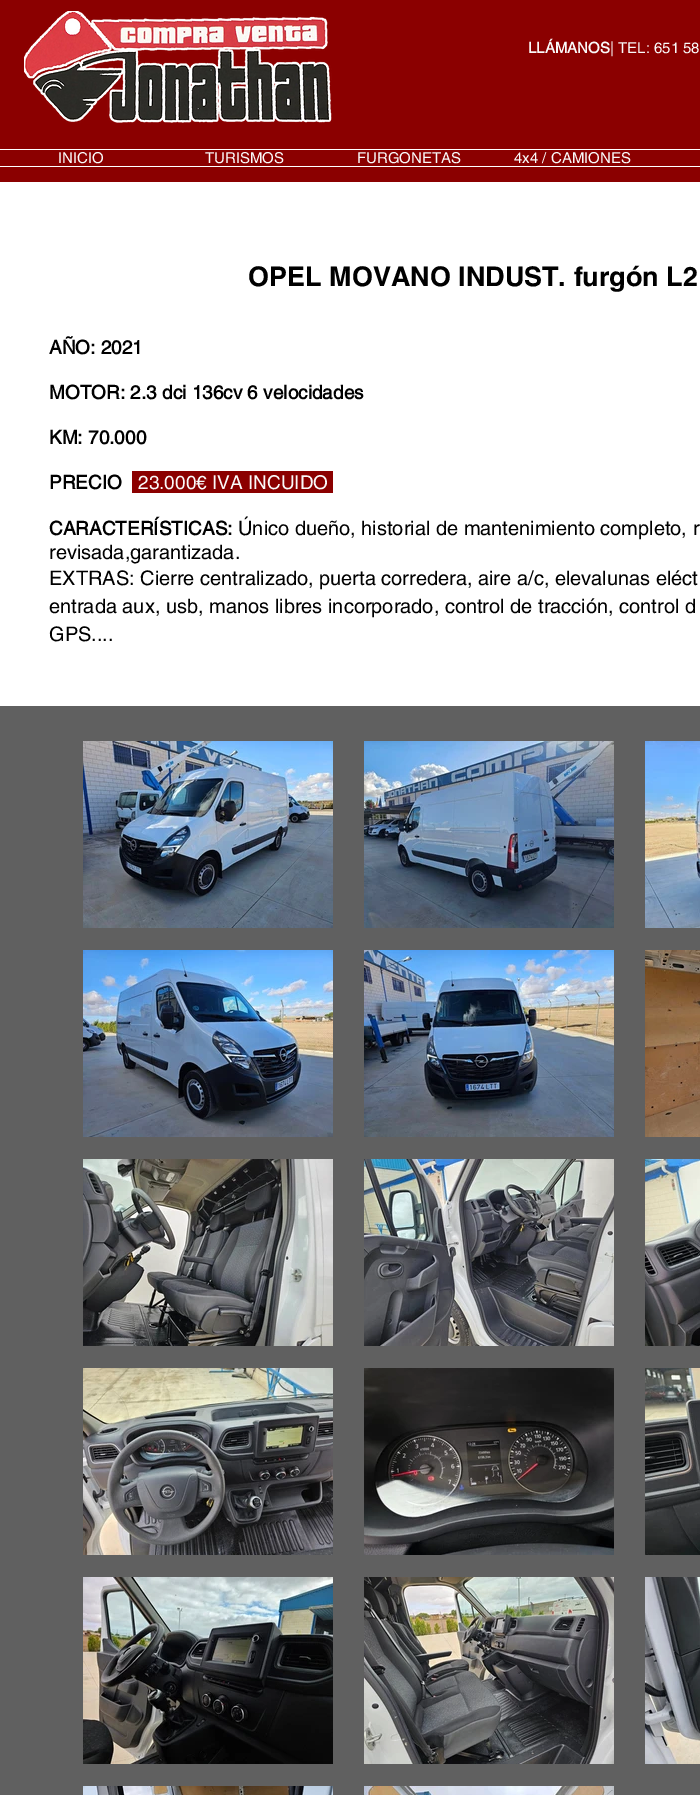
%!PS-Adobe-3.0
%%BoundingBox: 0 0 700 1795
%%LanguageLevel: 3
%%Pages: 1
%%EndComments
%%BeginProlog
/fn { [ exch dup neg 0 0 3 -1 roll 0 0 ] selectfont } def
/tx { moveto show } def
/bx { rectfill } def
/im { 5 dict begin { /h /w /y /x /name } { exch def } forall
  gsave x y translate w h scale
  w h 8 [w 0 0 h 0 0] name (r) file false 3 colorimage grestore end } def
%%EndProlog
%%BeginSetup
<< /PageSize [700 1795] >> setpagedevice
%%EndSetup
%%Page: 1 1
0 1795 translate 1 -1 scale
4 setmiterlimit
0.376 setgray
0 0 700 1795 bx
0.545 0 0 setrgbcolor
0 0 700 182 bx
(image0.raw) 24 11 308 112 im
/helvetica-Bold 15 fn
0.98 setgray
(LLÁMANOS) 528 53 tx
/helvetica-Regular 15 fn
(| TEL: 651 58) 610 53 tx
1 setgray
0 149 700 1 bx
0 166 700 1 bx
0.98 setgray
(INICIO) 58 163 tx
(TURISMOS) 205 163 tx
(FURGONETAS) 357 163 tx
(4x4 / CAMIONES) 514 163 tx
1 setgray
0 182 700 524 bx
/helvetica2-Bold 27 fn
0 setgray
(OPEL MOVANO INDUST. furgón L2) 248 286 tx
/helvetica-Bold 19 fn
(AÑO: 2021) 49 354 tx
(MOTOR: 2.3 dci 136cv 6 velocidades) 49 399 tx
(KM: 70.000) 49 444 tx
(PRECIO) 49 489 tx
0.545 0 0 setrgbcolor
132 471 201 22 bx
/helvetica-Regular 19 fn
0.98 setgray
(23.000€ IVA INCUIDO) 138 489 tx
/helvetica-Bold 19 fn
0 setgray
(CARACTERÍSTICAS:) 49 535 tx
/helvetica-Regular 20 fn
(Único dueño, historial de mantenimiento completo, r) 238 535 tx
(revisada,garantizada.) 49 559 tx
(EXTRAS: Cierre centralizado, puerta corredera, aire a/c, elevalunas eléct) 49 585 tx
(entrada aux, usb, manos libres incorporado, control de tracción, control d) 49 613 tx
(GPS....) 49 641 tx
(image1.raw) 83 741 250 187 im
(image2.raw) 364 741 250 187 im
(image3.raw) 645 741 55 187 im
(image4.raw) 83 950 250 187 im
(image5.raw) 364 950 250 187 im
(image6.raw) 645 950 55 187 im
(image7.raw) 83 1159 250 187 im
(image8.raw) 364 1159 250 187 im
(image9.raw) 645 1159 55 187 im
(image10.raw) 83 1368 250 187 im
(image11.raw) 364 1368 250 187 im
(image12.raw) 645 1368 55 187 im
(image13.raw) 83 1577 250 187 im
(image14.raw) 364 1577 250 187 im
(image15.raw) 645 1577 55 187 im
(image16.raw) 83 1786 250 9 im
(image17.raw) 364 1786 250 9 im
showpage
%%EOF
